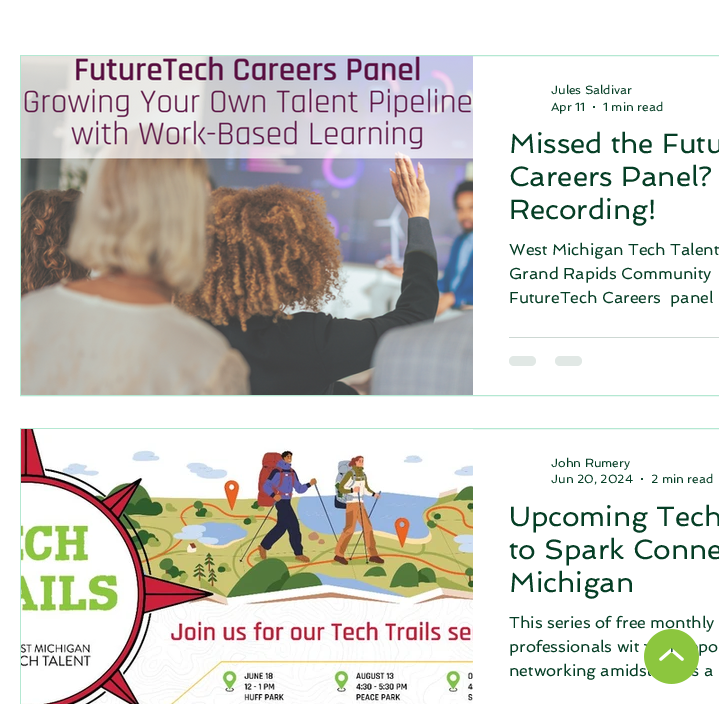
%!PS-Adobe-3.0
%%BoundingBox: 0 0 719 704
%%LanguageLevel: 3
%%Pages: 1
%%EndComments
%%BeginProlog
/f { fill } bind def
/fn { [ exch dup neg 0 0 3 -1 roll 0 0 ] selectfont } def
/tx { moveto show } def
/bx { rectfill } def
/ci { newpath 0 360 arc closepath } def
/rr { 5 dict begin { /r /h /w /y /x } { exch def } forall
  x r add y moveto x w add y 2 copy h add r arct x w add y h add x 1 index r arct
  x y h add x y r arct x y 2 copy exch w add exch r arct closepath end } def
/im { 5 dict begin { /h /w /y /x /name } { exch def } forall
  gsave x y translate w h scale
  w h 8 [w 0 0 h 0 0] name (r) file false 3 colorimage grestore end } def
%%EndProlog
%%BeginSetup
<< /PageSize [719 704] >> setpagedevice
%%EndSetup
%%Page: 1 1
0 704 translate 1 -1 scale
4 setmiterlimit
1 setgray
0 0 719 704 bx
0.706 0.91 0.824 setrgbcolor
20.5 55.5 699 340 rectstroke
(image0.raw) 21 56 452 339 im
/Spinnaker-Regular 12 fn
0.02 0.243 0.145 setrgbcolor
(Jules Saldivar) 551 94 tx
(Apr 11) 551 111 tx
594 107 1 ci f
(1 min read) 603 111 tx
/Spinnaker-Regular 28 fn
(Missed the Futu) 509 153 tx
(Careers Panel?) 509 186 tx
(Recording!) 509 219 tx
/Spinnaker-Regular 16 fn
(West Michigan Tech Talent) 509 255 tx
(Grand Rapids Community) 509 279 tx
(FutureTech Careers  panel) 509 303 tx
0.804 0.847 0.827 setrgbcolor
509 337 210 1 bx
0.882 0.91 0.898 setrgbcolor
509 356 27 10 5 rr f
555 356 27 10 5 rr f
0.706 0.91 0.824 setrgbcolor
20.5 428.5 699 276 rectstroke
(image1.raw) 21 429 452 275 im
/Spinnaker-Regular 12 fn
0.02 0.243 0.145 setrgbcolor
(John Rumery) 551 467 tx
(Jun 20, 2024) 551 483 tx
642 479 1 ci f
(2 min read) 651 483 tx
/Spinnaker-Regular 28 fn
(Upcoming Tech) 509 526 tx
(to Spark Conne) 509 559 tx
(Michigan) 509 592 tx
/Spinnaker-Regular 16 fn
(This series of free monthly) 509 628 tx
(professionals wit) 509 652 tx
(po) 698 652 tx
(networking amids) 509 676 tx
(a) 704 676 tx
(image2.raw) 644 629 55 55 im
showpage
%%EOF
